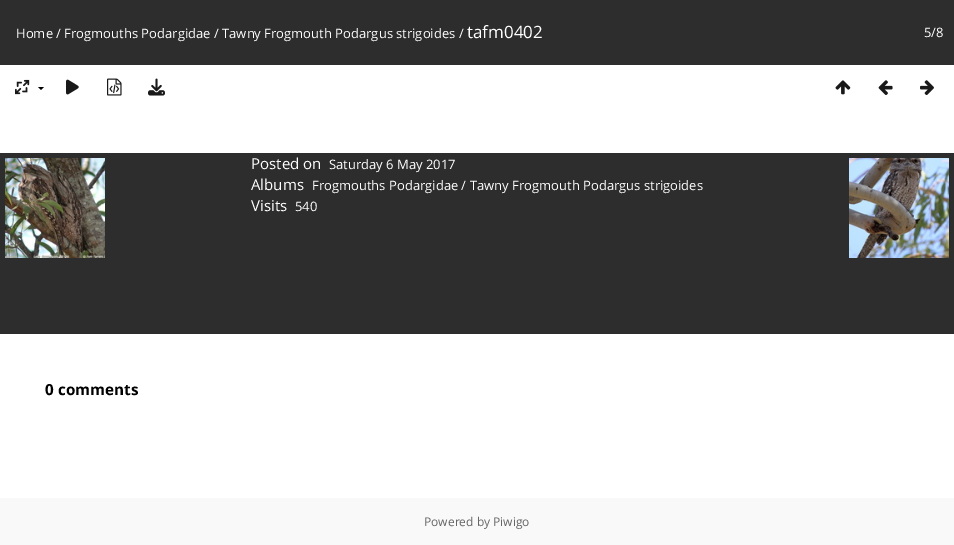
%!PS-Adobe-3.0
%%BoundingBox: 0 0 954 545
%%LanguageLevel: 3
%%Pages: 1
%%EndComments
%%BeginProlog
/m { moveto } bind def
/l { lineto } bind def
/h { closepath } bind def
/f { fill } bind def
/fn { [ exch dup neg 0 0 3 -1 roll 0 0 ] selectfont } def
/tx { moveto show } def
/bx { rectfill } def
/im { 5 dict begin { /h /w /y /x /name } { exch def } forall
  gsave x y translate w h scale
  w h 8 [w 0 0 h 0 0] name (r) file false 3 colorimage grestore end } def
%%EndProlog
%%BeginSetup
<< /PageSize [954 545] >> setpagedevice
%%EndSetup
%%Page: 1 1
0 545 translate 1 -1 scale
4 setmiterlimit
1 setgray
0 0 954 545 bx
0.176 setgray
0 0 954 65 bx
/OpenSans-Regular 13 fn
1 setgray
(Home / Frogmouths Podargidae / Tawny Frogmouth Podargus strigoides /) 16 38 tx
/OpenSans-Regular 17 fn
(tafm0402) 467 38 tx
/OpenSans-Regular 13 fn
(5/8) 924 37 tx
(image0.raw) 15 79 15 16 im
0 setgray
38 87 m 44 87 l 41 90 l h f
(image1.raw) 66 79 13 16 im
(image2.raw) 107 78 15 18 im
(image3.raw) 148 78 17 18 im
(image4.raw) 835 80 16 15 im
(image5.raw) 878 80 15 15 im
(image6.raw) 920 80 14 15 im
0.176 setgray
0 153 954 181 bx
/OpenSans-Regular 15 fn
1 setgray
(Posted on) 251 169 tx
/OpenSans-Regular 13 fn
(Saturday 6 May 2017) 329 169 tx
/OpenSans-Regular 15 fn
(Albums) 251 190 tx
/OpenSans-Regular 13 fn
(Frogmouths Podargidae / Tawny Frogmouth Podargus strigoides) 312 190 tx
/OpenSans-Regular 15 fn
(Visits) 251 211 tx
/OpenSans-Regular 13 fn
(540) 295 211 tx
(image7.raw) 5 158 100 100 im
(image8.raw) 849 158 100 100 im
/OpenSans-Bold 15.25 fn
0 setgray
(0 comments) 45 395 tx
0.976 setgray
0 498 954 47 bx
/OpenSans-Regular 12 fn
0.4 setgray
(Powered by Piwigo) 424 526 tx
showpage
%%EOF
